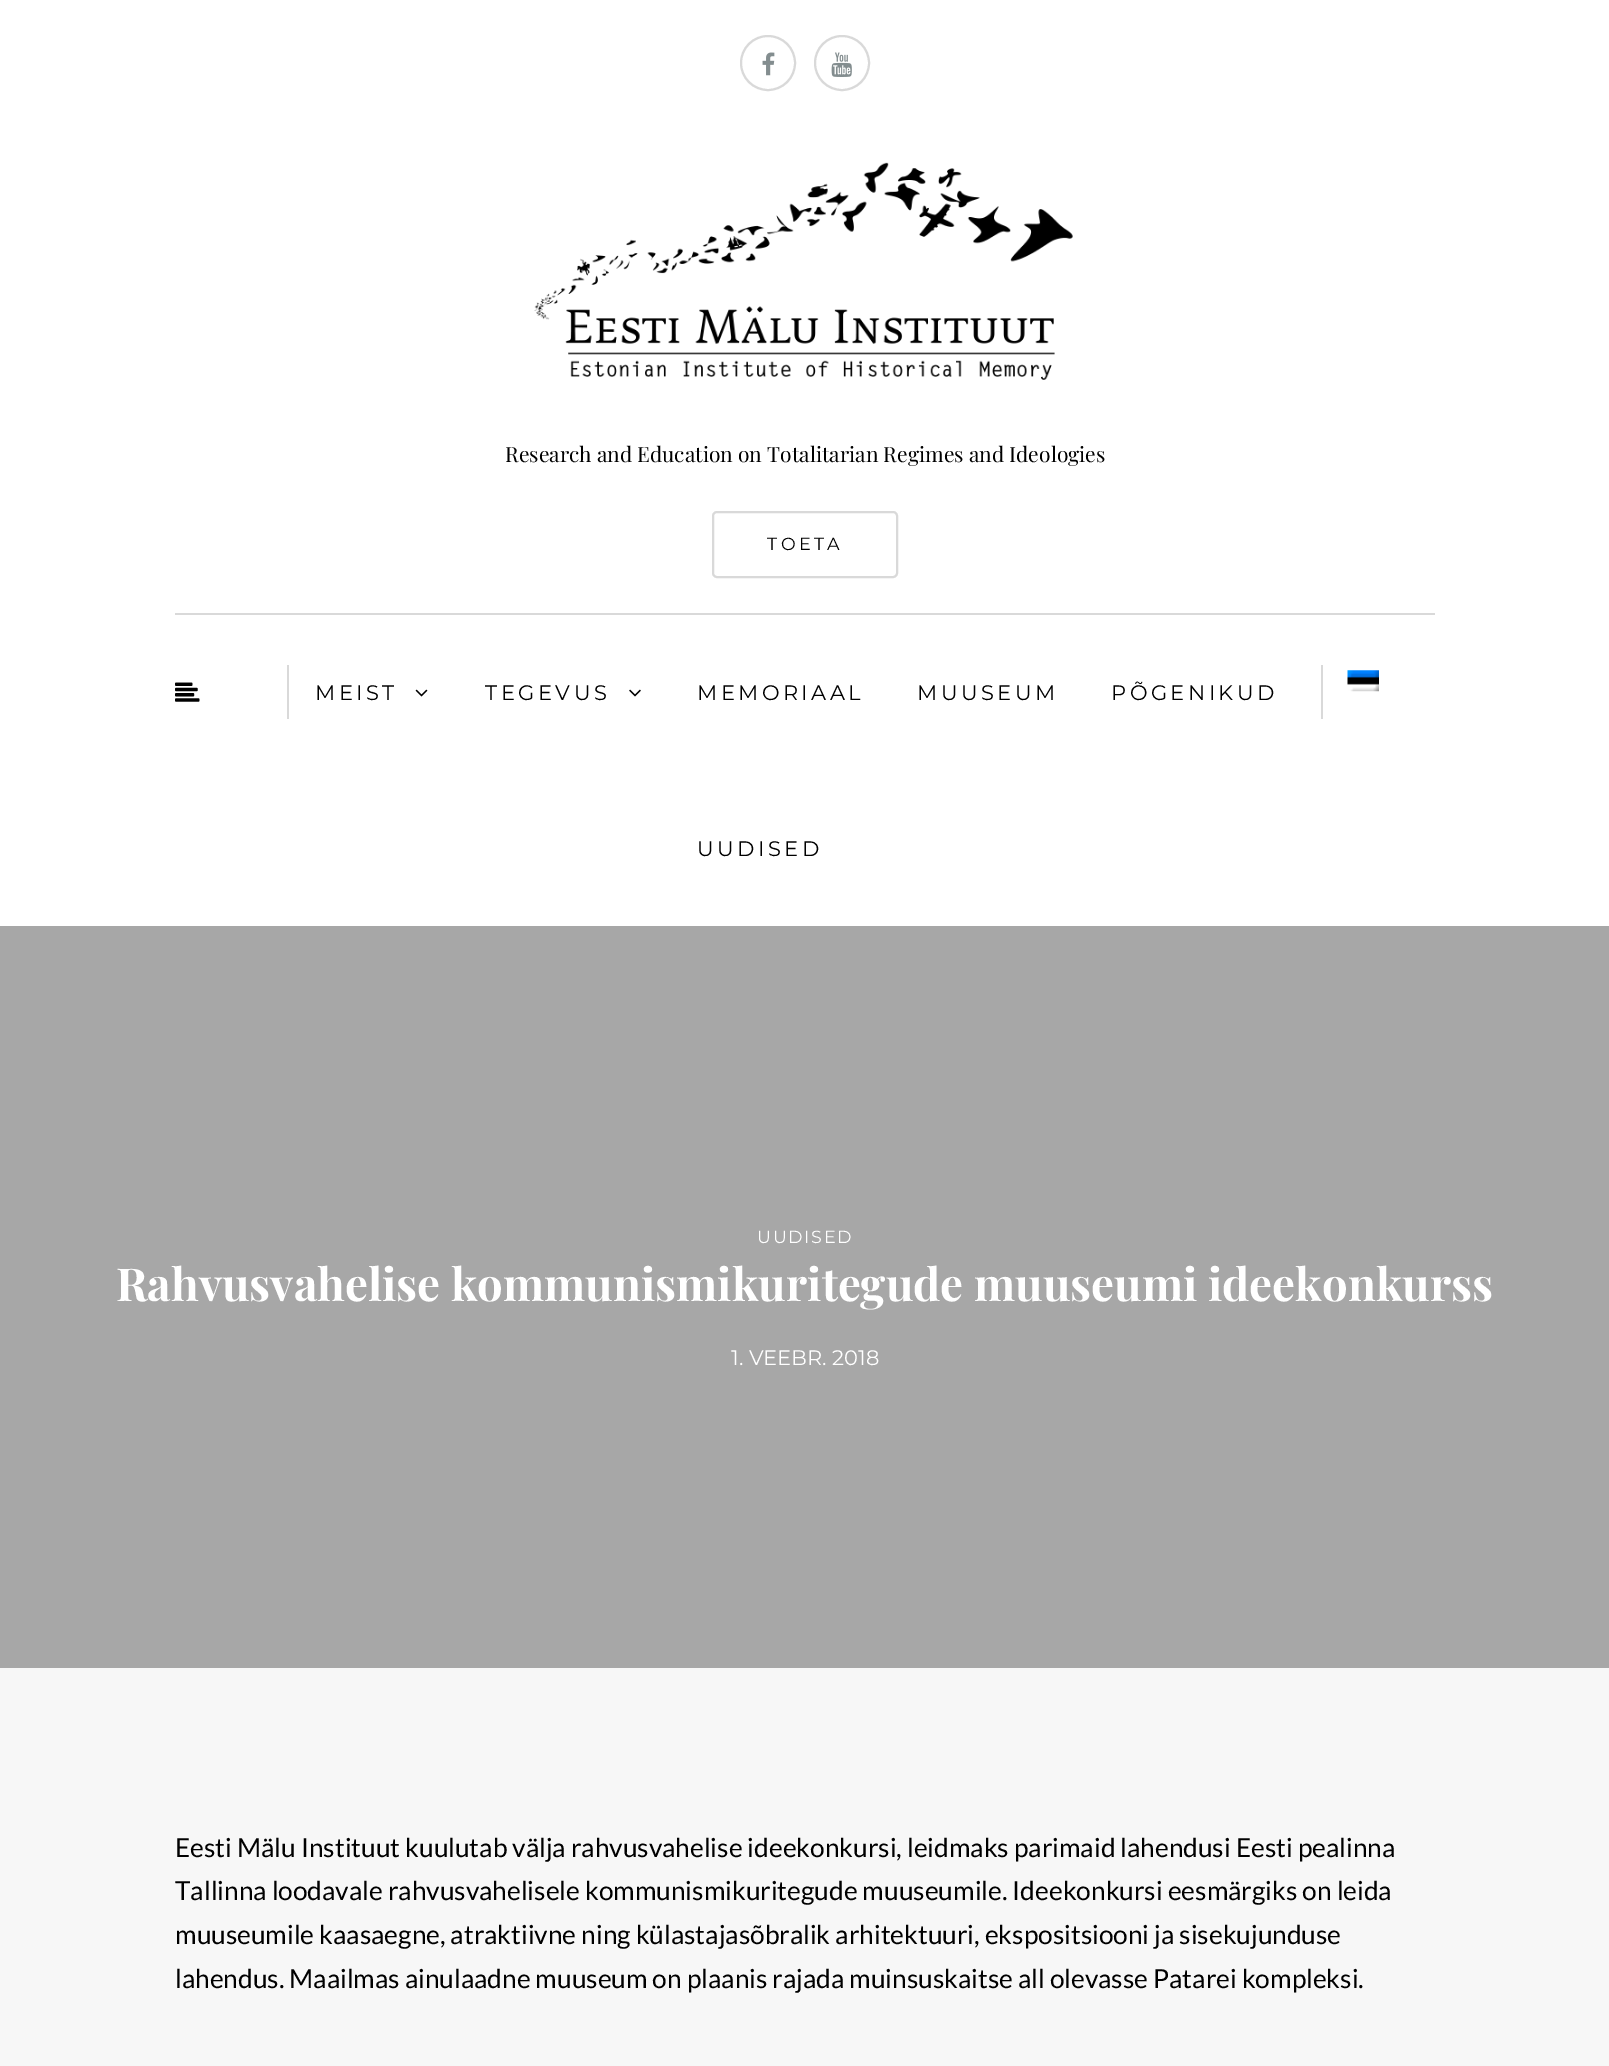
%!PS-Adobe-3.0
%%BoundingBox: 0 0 1609 2066
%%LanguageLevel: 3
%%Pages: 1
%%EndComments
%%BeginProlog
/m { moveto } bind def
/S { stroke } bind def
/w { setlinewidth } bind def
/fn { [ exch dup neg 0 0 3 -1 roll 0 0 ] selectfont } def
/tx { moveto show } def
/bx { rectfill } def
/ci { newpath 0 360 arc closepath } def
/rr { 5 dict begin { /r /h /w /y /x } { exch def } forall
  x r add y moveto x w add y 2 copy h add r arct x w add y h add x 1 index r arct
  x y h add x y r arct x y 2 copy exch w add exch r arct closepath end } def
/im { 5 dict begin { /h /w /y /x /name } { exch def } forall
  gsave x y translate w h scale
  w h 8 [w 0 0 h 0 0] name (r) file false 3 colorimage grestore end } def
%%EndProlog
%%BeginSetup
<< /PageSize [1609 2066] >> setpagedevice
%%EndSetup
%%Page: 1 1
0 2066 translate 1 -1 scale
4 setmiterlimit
0.969 setgray
0 0 1609 2066 bx
1 setgray
0 0 1609 926 bx
0.851 setgray
2 w
768 63 27 ci S
(image0.raw) 762 52 13 24 im
842 63 27 ci S
(image1.raw) 831 52 21 25 im
(image2.raw) 534 162 539 218 im
/PlayfairDisplay-Regular 21 fn
0 setgray
(Research and Education on Totalitarian Regimes and Ideologies) 505 462 tx
0.851 setgray
713 512 184 65 4 rr S
/Montserrat-Thin 17.5 fn
0 setgray
767 550 m 3.5 0 (TOETA) ashow
0.851 setgray
287 665 2 54 bx
(image3.raw) 175 682 25 20 im
175 613 1260 2 bx
/Montserrat-Thin 21 fn
0 setgray
315 700 m 3.5 0 (MEIST) ashow
(image4.raw) 415 689 13 8 im
485 700 m 3.5 0 (TEGEVUS) ashow
(image5.raw) 629 689 12 8 im
697 700 m 3.5 0 (MEMORIAAL) ashow
917 700 m 3.5 0 (MUUSEUM) ashow
1111 700 m 3.5 0 (PÕGENIKUD) ashow
697 856 m 3.5 0 (UUDISED) ashow
0.851 setgray
1321 665 2 54 bx
(image6.raw) 1347 670 32 22 im
0.655 setgray
0 926 1609 742 bx
/Montserrat-Thin 17.5 fn
1 setgray
757 1243 m 1.75 0 (UUDISED) ashow
/PlayfairDisplay-Bold 45.5 fn
(Rahvusvahelise kommunismikuritegude muuseumi ideekonkurss) 116 1301 tx
/Montserrat-Thin 21 fn
(1. VEEBR. 2018) 731 1365 tx
/Lato-Regular 26.25 fn
0 setgray
(Eesti Mälu Instituut kuulutab välja rahvusvahelise ideekonkursi, leidmaks parimaid lahendusi Eesti pealinna) 175 1857 tx
(Tallinna loodavale rahvusvahelisele kommunismikuritegude muuseumile. Ideekonkursi eesmärgiks on leida) 175 1900 tx
(muuseumile kaasaegne, atraktiivne ning külastajasõbralik arhitektuuri, ekspositsiooni ja sisekujunduse) 175 1944 tx
(lahendus. Maailmas ainulaadne muuseum on plaanis rajada muinsuskaitse all olevasse Patarei kompleksi.) 175 1988 tx
showpage
%%EOF
